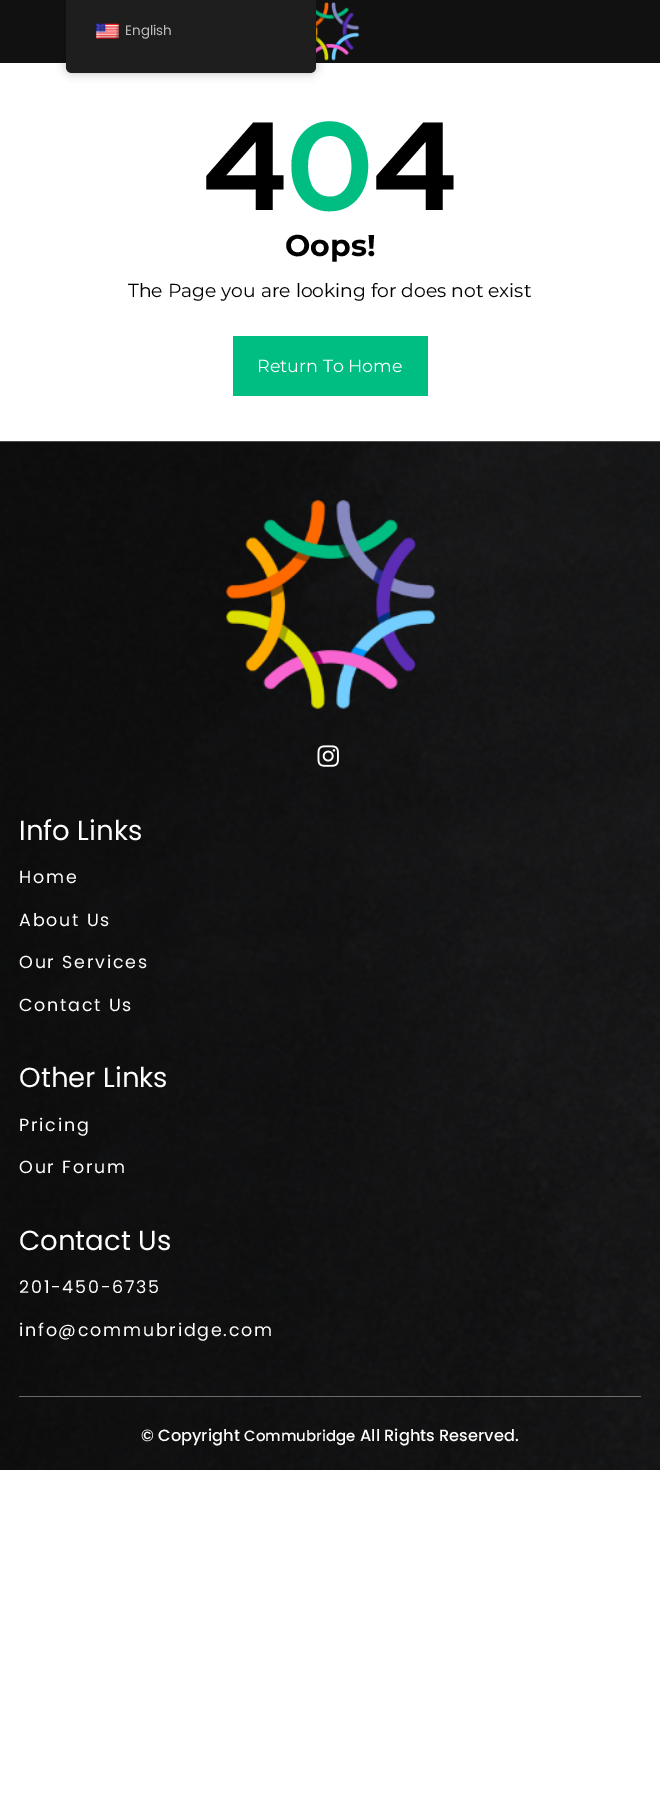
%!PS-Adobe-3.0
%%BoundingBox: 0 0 660 1809
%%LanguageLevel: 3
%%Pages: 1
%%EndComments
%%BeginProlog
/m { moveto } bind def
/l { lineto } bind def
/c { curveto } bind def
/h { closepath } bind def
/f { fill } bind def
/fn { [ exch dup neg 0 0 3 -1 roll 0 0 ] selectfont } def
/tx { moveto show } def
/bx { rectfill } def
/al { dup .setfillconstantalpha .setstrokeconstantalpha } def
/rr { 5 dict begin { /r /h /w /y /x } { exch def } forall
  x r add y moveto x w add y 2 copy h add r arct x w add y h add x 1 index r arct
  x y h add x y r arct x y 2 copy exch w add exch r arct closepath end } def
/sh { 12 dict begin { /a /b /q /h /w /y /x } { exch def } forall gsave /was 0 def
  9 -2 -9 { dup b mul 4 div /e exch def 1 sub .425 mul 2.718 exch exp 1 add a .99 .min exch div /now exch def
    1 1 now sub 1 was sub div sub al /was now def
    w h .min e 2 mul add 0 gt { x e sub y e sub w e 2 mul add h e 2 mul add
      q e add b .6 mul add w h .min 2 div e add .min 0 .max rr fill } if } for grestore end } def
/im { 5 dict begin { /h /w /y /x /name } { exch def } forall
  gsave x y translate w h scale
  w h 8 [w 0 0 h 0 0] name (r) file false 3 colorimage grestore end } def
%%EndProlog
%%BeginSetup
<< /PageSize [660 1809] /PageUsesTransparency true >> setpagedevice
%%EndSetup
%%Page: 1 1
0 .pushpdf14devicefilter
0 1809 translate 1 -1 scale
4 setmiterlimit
1 setgray
0 0 660 1809 bx
0.067 setgray
0 0 660 63 bx
(image0.raw) 316 2 44 59 im
0 setgray
66 0 250 73 6 5 0.25 sh
0.118 setgray
66 0 m 316 0 l 316 67 l 316 70.5 313.5 73 310 73 c 72 73 l 68.5 73 66 70.5 66 67 c h f
(image1.raw) 96 23 23 16 im
/Poppins-Regular 13.5 fn
0.741 setgray
(English) 125 35 tx
/RedHatDisplay-ExtraBold 125 fn
0 setgray
(4) 203 210 tx
0 0.745 0.51 setrgbcolor
(0) 287 210 tx
0 setgray
(4) 373 210 tx
/Montserrat-Bold 30 fn
(Oops!) 285 256 tx
/Montserrat-Regular 18.75 fn
(The Page you are looking for does not exist) 128 297 tx
0 0.745 0.51 setrgbcolor
233 336 195 60 bx
/Montserrat-Regular 17.5 fn
1 setgray
(Return To Home) 257 372 tx
(image2.raw) 0 441 660 1029 im
(image3.raw) 226 499 210 210 im
(image4.raw) 317 745 22 22 im
/Poppins-Regular 27.5 fn
(Info Links) 19 840 tx
/Poppins-Regular 17.5 fn
19 883 m 1.75 0 (Home) ashow
19 926 m 1.75 0 (About Us) ashow
19 968 m 1.75 0 (Our Services) ashow
19 1011 m 1.75 0 (Contact Us) ashow
/Poppins-Regular 27.5 fn
(Other Links) 19 1087 tx
/Poppins-Regular 17.5 fn
19 1131 m 1.75 0 (Pricing) ashow
19 1173 m 1.75 0 (Our Forum) ashow
/Poppins-Regular 27.5 fn
(Contact Us) 19 1250 tx
/Poppins-Regular 17.5 fn
19 1293 m 1.75 0 (201-450-6735) ashow
19 1336 m 1.75 0 (info@commubridge.com) ashow
0.38 al
19 1396 622 1 bx
/Poppins-Medium 16.25 fn
1 al
(© Copyright) 141 1441 tx
/Poppins-Medium 15 fn
(Commubridge) 244 1441 tx
/Poppins-Medium 16.25 fn
(All Rights Reserved.) 360 1441 tx
.poppdf14devicefilter showpage
%%EOF
